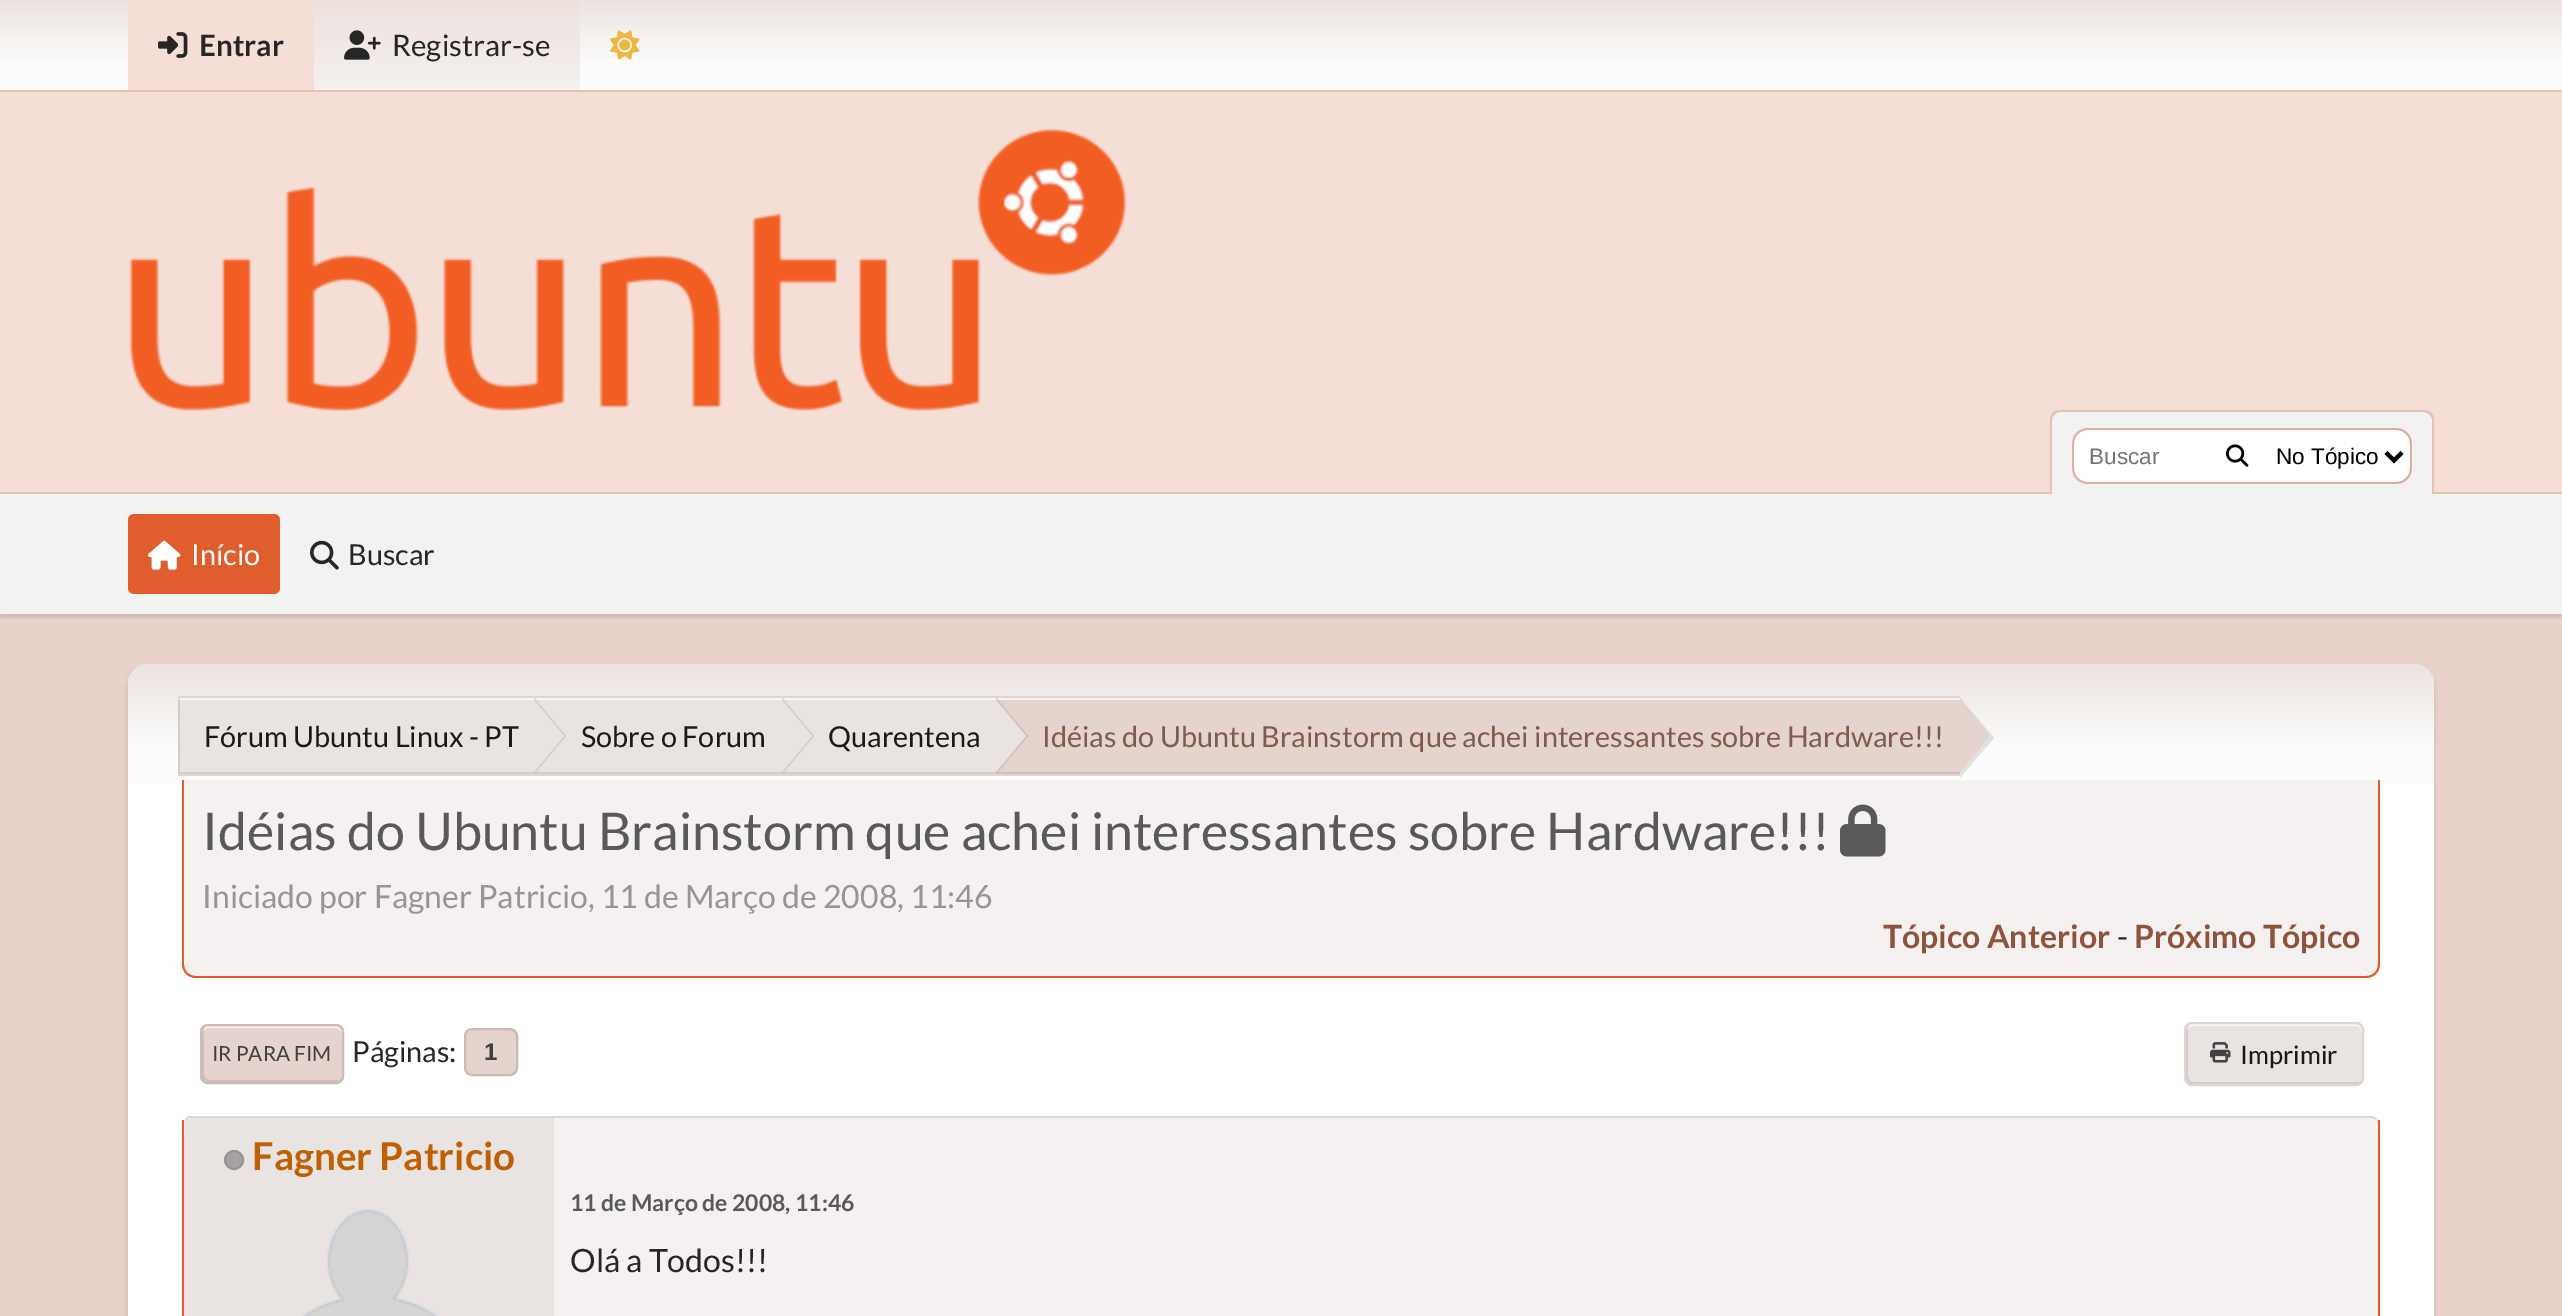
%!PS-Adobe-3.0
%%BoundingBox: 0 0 2562 1316
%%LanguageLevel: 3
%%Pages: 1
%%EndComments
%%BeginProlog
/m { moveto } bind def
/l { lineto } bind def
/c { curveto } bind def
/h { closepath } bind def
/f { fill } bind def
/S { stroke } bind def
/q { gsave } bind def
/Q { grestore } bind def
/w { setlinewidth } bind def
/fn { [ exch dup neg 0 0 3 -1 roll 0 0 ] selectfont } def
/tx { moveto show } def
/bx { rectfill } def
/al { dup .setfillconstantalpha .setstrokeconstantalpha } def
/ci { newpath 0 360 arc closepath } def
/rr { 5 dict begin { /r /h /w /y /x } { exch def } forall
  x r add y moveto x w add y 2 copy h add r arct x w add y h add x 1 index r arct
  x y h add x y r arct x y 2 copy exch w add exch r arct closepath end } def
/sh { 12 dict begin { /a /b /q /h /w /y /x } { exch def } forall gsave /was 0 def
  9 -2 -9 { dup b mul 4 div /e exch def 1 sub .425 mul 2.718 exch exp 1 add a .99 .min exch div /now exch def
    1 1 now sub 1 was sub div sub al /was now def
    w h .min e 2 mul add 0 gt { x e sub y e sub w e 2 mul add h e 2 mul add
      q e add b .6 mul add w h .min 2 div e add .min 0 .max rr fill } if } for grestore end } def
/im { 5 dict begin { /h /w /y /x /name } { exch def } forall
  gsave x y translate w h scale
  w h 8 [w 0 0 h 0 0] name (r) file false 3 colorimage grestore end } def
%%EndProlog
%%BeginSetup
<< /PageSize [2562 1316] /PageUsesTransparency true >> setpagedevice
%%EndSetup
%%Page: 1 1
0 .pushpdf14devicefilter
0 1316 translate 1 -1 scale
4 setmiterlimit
0.91 0.824 0.788 setrgbcolor
0 0 2562 1316 bx
q 0 0 m 2562 0 l 2562 90 l 0 90 l h clip newpath
<< /ShadingType 2 /ColorSpace /DeviceRGB /Coords [1281 0 1281 90] /Extend [true true] /Function << /FunctionType 3 /Domain [0 1] /Functions [<< /FunctionType 2 /Domain [0 1] /C0 [0.922 0.89 0.878] /C1 [0.988 0.988 0.988] /N 1 >> << /FunctionType 2 /Domain [0 1] /C0 [0.988 0.988 0.988] /C1 [0.988 0.988 0.988] /N 1 >>] /Bounds [0.7] /Encode [0 1 0 1] >> >> shfill Q
0.89 0.757 0.71 setrgbcolor
0 90 2562 2 bx
0.961 0.871 0.839 setrgbcolor
128 0 186 90 bx
(image0.raw) 158 32 30 26 im
/Lato-Bold 29.5 fn
0.149 setgray
(Entrar) 199 56 tx
q 314 0 m 580 0 l 580 90 l 314 90 l h clip newpath
<< /ShadingType 2 /ColorSpace /DeviceRGB /Coords [447 0 447 90] /Extend [true true] /Function << /FunctionType 2 /Domain [0 1] /C0 [0.933 0.882 0.867] /C1 [0.957 0.945 0.941] /N 1 >> >> shfill Q
(image1.raw) 344 30 37 30 im
/Lato-Regular 29.5 fn
(Registrar-se) 392 56 tx
(image2.raw) 610 30 30 30 im
0.961 0.871 0.839 setrgbcolor
0 92 2562 400 bx
0.89 0.757 0.71 setrgbcolor
0 492 2562 2 bx
(image3.raw) 129 128 998 284 im
0.949 setgray
2060 412 m 2424 412 l 2428.5 412 2432 415.5 2432 420 c 2432 494 l 2052 494 l 2052 420 l 2052 415.5 2055.5 412 2060 412 c h f
0.89 0.757 0.71 setrgbcolor
2060 410 m 2424 410 l 2430 410 2434 414 2434 420 c 2434 494 l 2050 494 l 2050 420 l 2050 414 2054 410 2060 410 c h 2060 412 m 2424 412 l 2428 412 2432 416 2432 420 c 2432 494 l 2052 494 l 2052 420 l 2052 416 2056 412 2060 412 c h eofill
1 setgray
2088 430 m 2206 430 l 2206 482 l 2088 482 l 2080.5 482 2074 475.5 2074 468 c 2074 444 l 2074 436.5 2080.5 430 2088 430 c h f
0.875 0.69 0.624 setrgbcolor
2088 428 m 2206 428 l 2206 484 l 2088 484 l 2079 484 2072 477 2072 468 c 2072 444 l 2072 435 2079 428 2088 428 c h 2088 430 m 2206 430 l 2206 482 l 2088 482 l 2080 482 2074 476 2074 468 c 2074 444 l 2074 436 2080 430 2088 430 c h eofill
/LiberationSans-Regular 22.5 fn
0.459 setgray
(Buscar) 2089 464 tx
1 setgray
2206 430 62 52 bx
0.875 0.69 0.624 setrgbcolor
2206 428 62 2 bx
2206 482 62 2 bx
(image4.raw) 2226 444 23 23 im
1 setgray
2268 430 m 2396 430 l 2403.5 430 2410 436.5 2410 444 c 2410 468 l 2410 475.5 2403.5 482 2396 482 c 2268 482 l h f
0.875 0.69 0.624 setrgbcolor
2268 428 m 2396 428 l 2405 428 2412 435 2412 444 c 2412 468 l 2412 477 2405 484 2396 484 c 2268 484 l h 2268 430 m 2396 430 l 2404 430 2410 436 2410 444 c 2410 468 l 2410 476 2404 482 2396 482 c 2268 482 l h eofill
0 setgray
4 w
2386 452.5 m 2394 460.5 l 2402 452.5 l S
(No Tópico) 2276 464 tx
0 498 2562 120 0 1 0.1 sh
0.949 setgray
0 494 2562 120 bx
0.878 0.369 0.18 setrgbcolor
128 514 152 80 6 rr f
(image5.raw) 148 540 33 30 im
/Lato-Regular 28.8 fn
1 setgray
(Início) 191 565 tx
(image6.raw) 310 540 29 30 im
0.149 setgray
(Buscar) 348 565 tx
0 setgray
128 668 2306 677 20 3 0.14 sh
q 148 664 m 2414 664 l 2425 664 2434 673 2434 684 c 2434 784 l 128 784 l 128 684 l 128 673 137 664 148 664 c h clip newpath
<< /ShadingType 2 /ColorSpace /DeviceRGB /Coords [1281 664 1281 784] /Extend [true true] /Function << /FunctionType 3 /Domain [0 1] /Functions [<< /FunctionType 2 /Domain [0 1] /C0 [0.922 0.89 0.878] /C1 [0.988 0.988 0.988] /N 1 >> << /FunctionType 2 /Domain [0 1] /C0 [0.988 0.988 0.988] /C1 [0.988 0.988 0.988] /N 1 >>] /Bounds [0.7] /Encode [0 1 0 1] >> >> shfill Q
0.914 0.894 0.886 setrgbcolor
178 700 818 74 bx
0.973 0.969 0.965 setrgbcolor
178 698 818 2 bx
q
178 698 356 76 rectclip
0.1 al
0 setgray
182 694 m 732 694 l 732 778 l 182 778 l 180 778 178 776 178 774 c 178 698 l 178 696 180 694 182 694 c h 180 696 m 180 772 l 536 772 l 536 696 l h eofill
Q
0.871 0.839 0.827 setrgbcolor
178 696 1782 2 bx
178 774 1782 2 bx
q
534 698 248 76 rectclip
0.1 al
0 setgray
336 778 m 336 694 l 980 694 l 980 778 l h 536 696 m 536 772 l 784 772 l 784 696 l h eofill
Q
0.824 0.804 0.796 setrgbcolor
536 772 m 536 700 l 566 736 l h f
0.914 0.894 0.886 setrgbcolor
534 772 m 534 700 l 564 736 l h f
0.102 setgray
(Fórum Ubuntu Linux - PT) 204 747 tx
q
782 698 214 76 rectclip
0.1 al
0 setgray
584 778 m 584 694 l 1194 694 l 1194 778 l h 784 696 m 784 772 l 998 772 l 998 696 l h eofill
Q
0.824 0.804 0.796 setrgbcolor
784 772 m 784 700 l 814 736 l h f
0.914 0.894 0.886 setrgbcolor
782 772 m 782 700 l 812 736 l h f
0.102 setgray
(Sobre o Forum) 581 747 tx
0.898 0.827 0.804 setrgbcolor
996 700 964 74 bx
0.969 0.949 0.941 setrgbcolor
996 698 964 2 bx
q
996 698 964 76 rectclip
0.1 al
0 setgray
798 778 m 798 694 l 2158 694 l 2158 778 l h 998 696 m 998 772 l 1962 772 l 1962 696 l h eofill
Q
0.808 0.745 0.725 setrgbcolor
998 772 m 998 700 l 1028 736 l h f
0.914 0.894 0.886 setrgbcolor
996 772 m 996 700 l 1026 736 l h f
0.102 setgray
(Quarentena) 828 747 tx
0.1 al
0 setgray
1960 778 m 1960 698 l 1994 738 l h f
1 al
0.502 0.353 0.302 setrgbcolor
(Idéias do Ubuntu Brainstorm que achei interessantes sobre Hardware!!!) 1042 747 tx
0.898 0.827 0.804 setrgbcolor
1960 772 m 1960 700 l 1990 736 l h f
1 setgray
128 784 2306 532 bx
0.957 0.945 0.941 setrgbcolor
184 780 m 2378 780 l 2378 964 l 2378 970.5 2372.5 976 2366 976 c 196 976 l 189.5 976 184 970.5 184 964 c h f
0.878 0.369 0.18 setrgbcolor
182 780 m 2380 780 l 2380 964 l 2380 972 2374 978 2366 978 c 196 978 l 188 978 182 972 182 964 c h 184 780 m 2378 780 l 2378 964 l 2378 971 2373 976 2366 976 c 196 976 l 189 976 184 971 184 964 c h eofill
/Lato-Regular 52 fn
0.349 setgray
(Idéias do Ubuntu Brainstorm que achei interessantes sobre Hardware!!!) 202 850 tx
(image7.raw) 1840 804 46 53 im
/Lato-Regular 32 fn
0.584 setgray
(Iniciado por Fagner Patricio, 11 de Março de 2008, 11:46) 202 908 tx
/Lato-Bold 32 fn
0.561 0.325 0.239 setrgbcolor
(Tópico Anterior) 1883 948 tx
/Lato-Regular 32 fn
0.149 setgray
(-) 2117 948 tx
/Lato-Bold 32 fn
0.561 0.325 0.239 setrgbcolor
(Próximo Tópico) 2134 948 tx
0.898 0.827 0.804 setrgbcolor
200 1024 144 60 8 rr f
0.969 0.949 0.941 setrgbcolor
208 1028 m 336 1028 l 339 1028 342 1031 342 1034 c 342 1032 l 342 1029 339 1026 336 1026 c 208 1026 l 205 1026 202 1029 202 1032 c 202 1034 l 202 1031 205 1028 208 1028 c h f
0.1 al
0 setgray
205 1027 m 203 1028 202 1030 202 1032 c 202 1076 l 202 1079 205 1082 208 1082 c 336 1082 l 338 1082 340 1081 341 1079 c 340 1080 339 1080 338 1080 c 210 1080 l 207 1080 204 1077 204 1074 c 204 1030 l 204 1029 204 1028 205 1027 c h f
1 al
0.788 0.733 0.714 setrgbcolor
2 w
201 1025 142 58 7 rr S
/Lato-Regular 20.75 fn
0.251 setgray
(IR PARA FIM) 212 1061 tx
/Lato-Regular 28.8 fn
0.149 setgray
(Páginas:) 352 1062 tx
0.898 0.827 0.804 setrgbcolor
465 1029 52 46 7 rr q f Q
0.788 0.733 0.714 setrgbcolor
S
/LiberationSans-Bold 24 fn
0.251 setgray
(1) 484 1060 tx
0.914 0.894 0.886 setrgbcolor
2184 1022 180 64 8 rr f
0.973 0.969 0.965 setrgbcolor
2192 1026 m 2356 1026 l 2359 1026 2362 1029 2362 1032 c 2362 1030 l 2362 1027 2359 1024 2356 1024 c 2192 1024 l 2189 1024 2186 1027 2186 1030 c 2186 1032 l 2186 1029 2189 1026 2192 1026 c h f
0.1 al
0 setgray
2189 1025 m 2187 1026 2186 1028 2186 1030 c 2186 1078 l 2186 1081 2189 1084 2192 1084 c 2356 1084 l 2358 1084 2360 1083 2361 1081 c 2360 1082 2359 1082 2358 1082 c 2194 1082 l 2191 1082 2188 1079 2188 1076 c 2188 1028 l 2188 1027 2188 1026 2189 1025 c h f
1 al
0.871 0.839 0.827 setrgbcolor
2185 1023 178 62 7 rr S
(image8.raw) 2210 1042 21 21 im
/Lato-Regular 25.5 fn
0.102 setgray
(Imprimir) 2240 1064 tx
0.957 0.945 0.941 setrgbcolor
190 1116 m 2372 1116 l 2375 1116 2378 1120 2378 1124 c 2378 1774 l 2378 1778 2375 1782 2372 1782 c 190 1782 l 187 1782 184 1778 184 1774 c 184 1124 l 184 1120 187 1116 190 1116 c h f
0.1 al
0 setgray
190 1118 m 2372 1118 l 2375 1118 2378 1122 2378 1126 c 2378 1122 2377 1116 2372 1116 c 190 1116 l 185 1116 184 1122 184 1126 c 184 1122 187 1118 190 1118 c h f
1 al
0.878 0.369 0.18 setrgbcolor
2378 1120 2 196 bx
182 1120 2 196 bx
0.914 0.894 0.886 setrgbcolor
192 1118 m 554 1118 l 554 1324 l 192 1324 l 187.5 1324 184 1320.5 184 1316 c 184 1126 l 184 1121.5 187.5 1118 192 1118 c h f
0.655 0.635 0.635 setrgbcolor
234 1160 9 ci q f Q
0.588 0.573 0.573 setrgbcolor
S
/Lato-Bold 38.5 fn
0.753 0.376 0.008 setrgbcolor
(Fagner Patricio) 252 1170 tx
(image9.raw) 301 1209 138 107 im
/Lato-Bold 23 fn
0.349 setgray
(11 de Março de 2008, 11:46) 570 1211 tx
/Lato-Regular 32 fn
0.149 setgray
(Olá a Todos!!!) 570 1272 tx
.poppdf14devicefilter showpage
%%EOF
